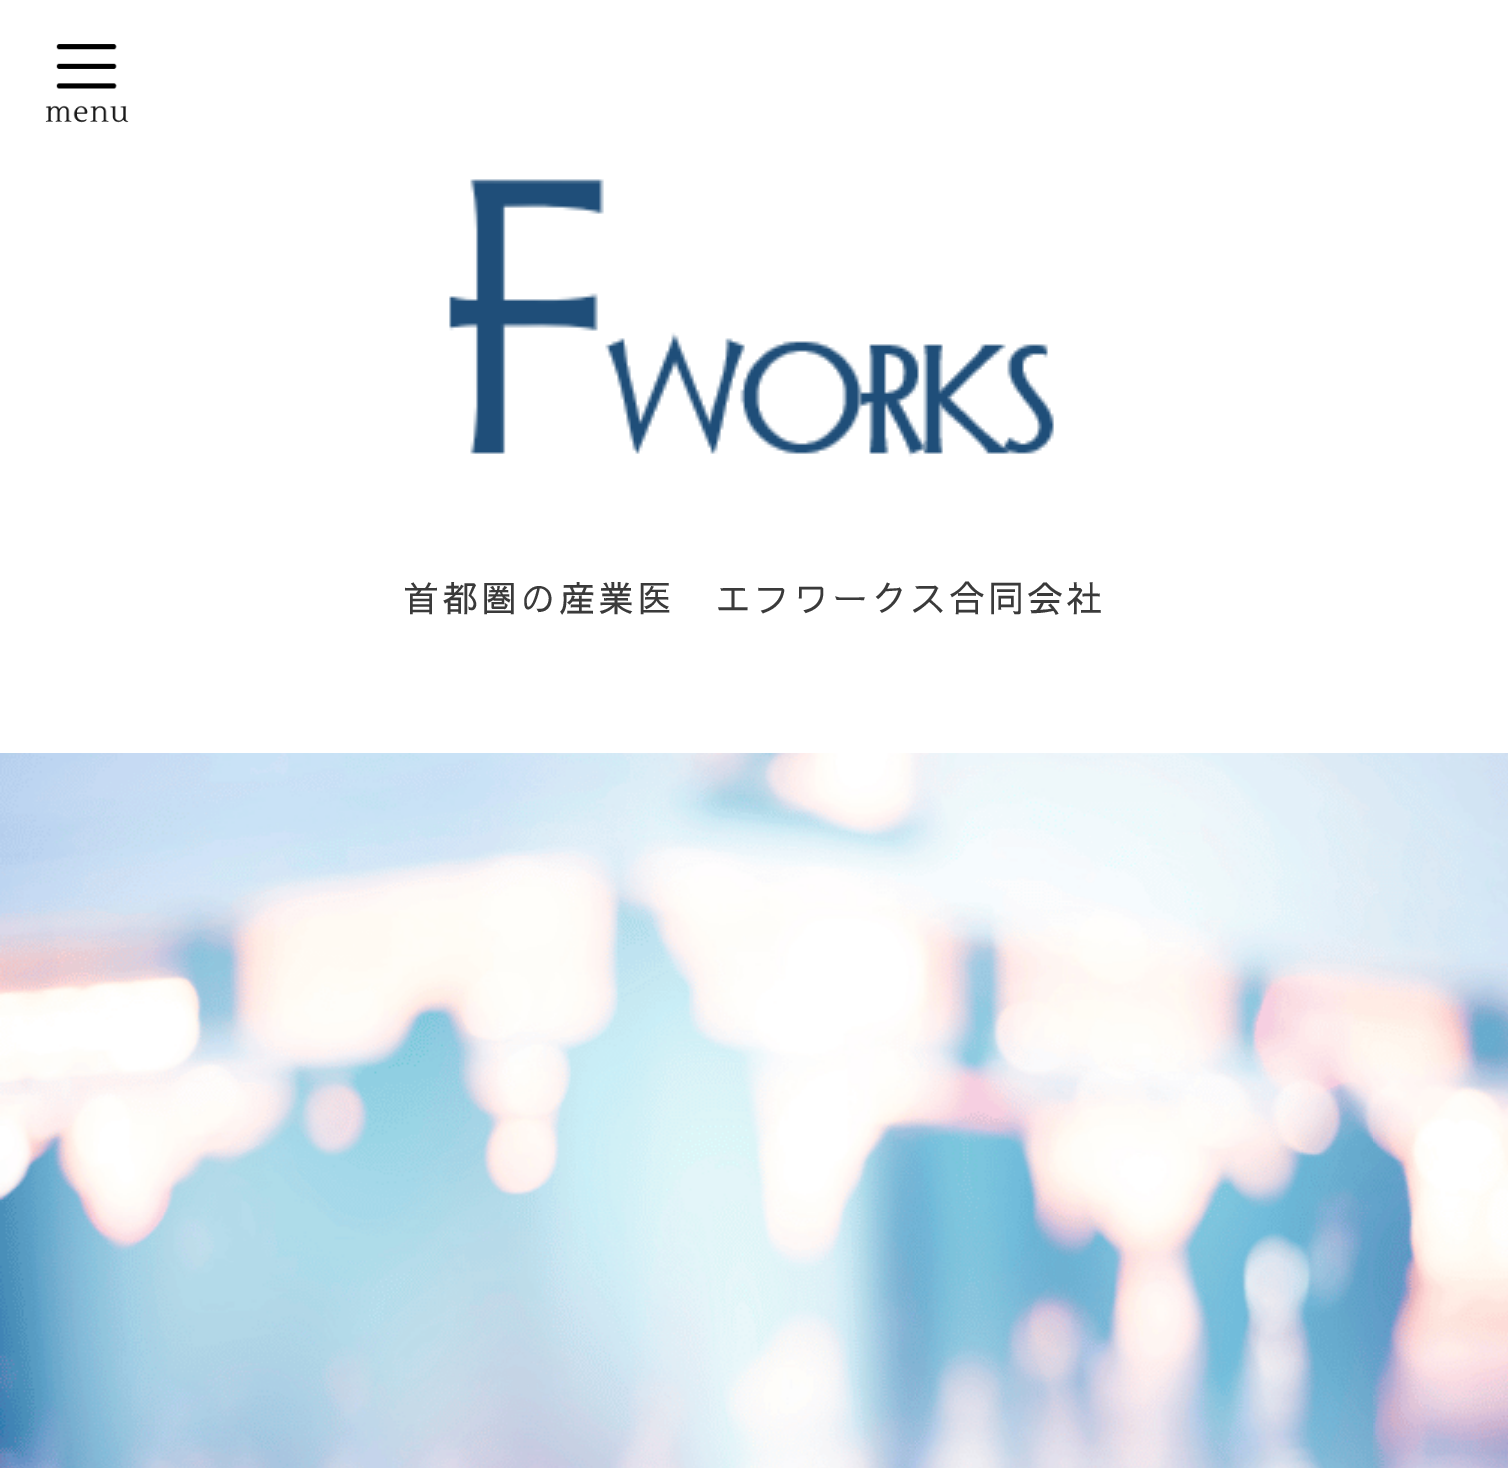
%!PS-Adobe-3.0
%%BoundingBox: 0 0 1508 1468
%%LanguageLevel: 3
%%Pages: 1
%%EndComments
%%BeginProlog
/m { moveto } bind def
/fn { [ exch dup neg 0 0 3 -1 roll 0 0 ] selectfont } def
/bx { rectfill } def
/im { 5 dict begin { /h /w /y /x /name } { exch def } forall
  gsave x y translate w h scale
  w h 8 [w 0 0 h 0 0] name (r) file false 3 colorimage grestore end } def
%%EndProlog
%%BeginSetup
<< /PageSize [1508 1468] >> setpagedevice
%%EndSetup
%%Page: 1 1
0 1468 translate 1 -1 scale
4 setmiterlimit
1 setgray
0 0 1508 1468 bx
(image0.raw) 45 44 84 79 im
(image1.raw) 449 179 605 278 im
/SawarabiGothic-Regular 36 fn
0.227 setgray
403 612 m 3 0 (首都圏の産業医　エフワークス合同会社) ashow
(image2.raw) 0 753 1508 715 im
showpage
%%EOF
